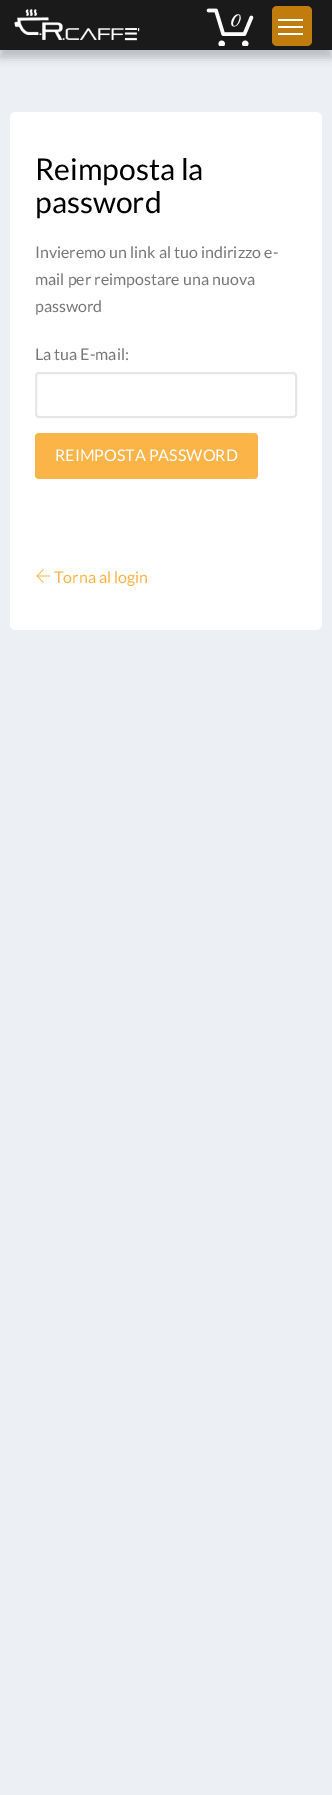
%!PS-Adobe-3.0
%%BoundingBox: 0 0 332 1795
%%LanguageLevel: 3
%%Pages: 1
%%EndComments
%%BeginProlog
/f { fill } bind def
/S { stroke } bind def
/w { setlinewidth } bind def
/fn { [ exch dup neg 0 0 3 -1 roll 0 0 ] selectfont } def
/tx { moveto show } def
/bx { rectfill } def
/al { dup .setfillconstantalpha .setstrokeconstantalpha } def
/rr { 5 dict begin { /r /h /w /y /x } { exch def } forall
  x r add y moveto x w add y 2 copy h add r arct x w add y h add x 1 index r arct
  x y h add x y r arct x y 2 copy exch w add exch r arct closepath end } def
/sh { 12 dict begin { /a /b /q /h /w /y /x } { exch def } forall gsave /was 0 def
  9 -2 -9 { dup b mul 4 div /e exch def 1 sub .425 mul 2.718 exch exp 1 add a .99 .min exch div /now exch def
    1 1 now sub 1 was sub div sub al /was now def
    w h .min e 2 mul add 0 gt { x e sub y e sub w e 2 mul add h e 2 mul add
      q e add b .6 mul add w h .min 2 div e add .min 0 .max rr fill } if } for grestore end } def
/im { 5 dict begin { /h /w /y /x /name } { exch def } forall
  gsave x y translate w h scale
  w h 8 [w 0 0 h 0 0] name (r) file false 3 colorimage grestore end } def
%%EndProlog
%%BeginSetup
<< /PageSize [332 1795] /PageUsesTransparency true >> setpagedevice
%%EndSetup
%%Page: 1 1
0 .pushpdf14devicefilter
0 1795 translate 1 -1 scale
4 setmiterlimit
0.925 0.937 0.957 setrgbcolor
0 0 332 1795 bx
0 setgray
0 8 332 50 0 4 0.2 sh
0.102 setgray
0 0 332 50 bx
(image0.raw) 14 9 126 32 im
(image1.raw) 206 8 48 38 im
/KaushanScript-Regular 16 fn
1 setgray
(0) 229 26 tx
0.757 0.486 0.055 setrgbcolor
272 6 40 40 5 rr f
1 setgray
278 26 25 2 bx
278 19 25 2 bx
278 33 25 2 bx
10 112 312 518 6 rr f
/Lato-Regular 30 fn
0 setgray
(Reimposta la) 35 180 tx
(password) 35 213 tx
/Lato-Regular 16 fn
0.467 setgray
(Invieremo un link al tuo indirizzo e-) 35 258 tx
(mail per reimpostare una nuova) 35 285 tx
(password) 35 312 tx
(La tua E-mail:) 35 360 tx
0.902 setgray
2 w
36 373 260 44 3 rr S
0.984 0.706 0.282 setrgbcolor
35 433 223 46 4 rr f
1 setgray
(REIMPOSTA PASSWORD) 55 461 tx
(image2.raw) 36 569 15 14 im
0.984 0.706 0.282 setrgbcolor
(Torna al login) 54 583 tx
.poppdf14devicefilter showpage
%%EOF
